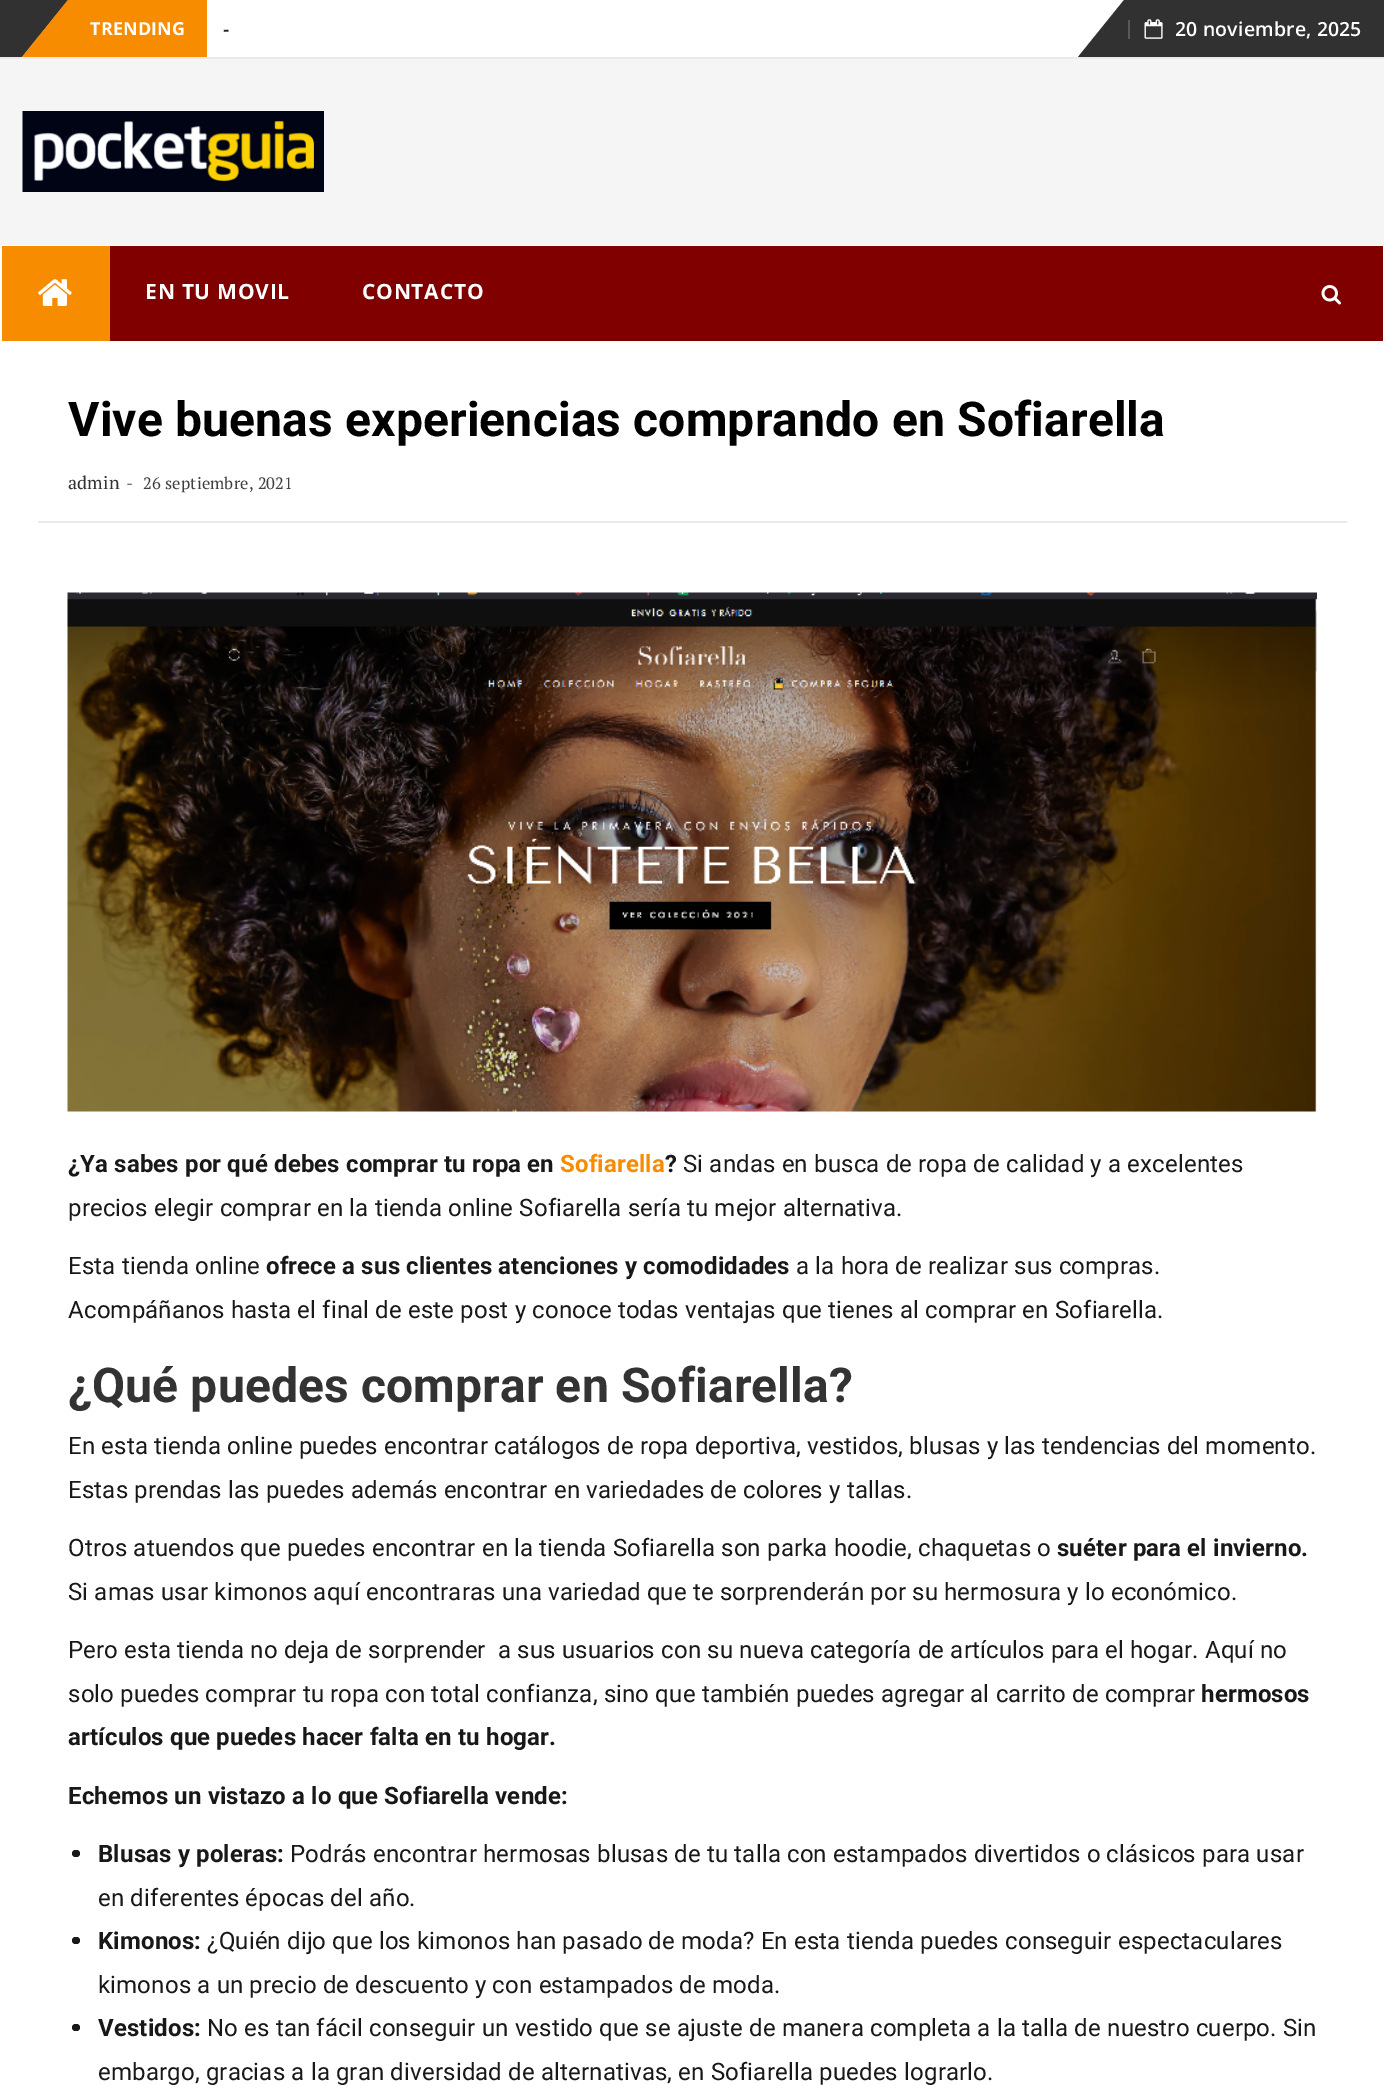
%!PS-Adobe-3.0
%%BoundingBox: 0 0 1384 2085
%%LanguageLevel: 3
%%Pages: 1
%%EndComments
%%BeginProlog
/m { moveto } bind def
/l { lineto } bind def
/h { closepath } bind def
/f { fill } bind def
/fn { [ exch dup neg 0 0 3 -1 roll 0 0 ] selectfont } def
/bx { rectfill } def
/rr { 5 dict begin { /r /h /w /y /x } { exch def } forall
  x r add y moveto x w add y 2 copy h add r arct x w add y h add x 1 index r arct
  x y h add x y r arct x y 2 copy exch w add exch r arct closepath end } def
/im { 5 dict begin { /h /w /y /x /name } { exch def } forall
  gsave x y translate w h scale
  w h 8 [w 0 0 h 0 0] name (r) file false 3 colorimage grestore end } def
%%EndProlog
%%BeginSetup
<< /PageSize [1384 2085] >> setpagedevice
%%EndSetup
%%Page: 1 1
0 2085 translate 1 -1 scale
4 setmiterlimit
1 setgray
0 0 1384 2085 bx
0.918 setgray
0 57 1384 2 bx
0.192 setgray
0 0 m 68 0 l 22 57 l 0 57 l h f
0.973 0.549 0 setrgbcolor
207 57 m 22 57 l 68 0 l 207 0 l h f
/OpenSans-Bold 18 fn
1 setgray
90 35 m 0.15 0 (TRENDING) ashow
/OpenSans-SemiBold 19.5 fn
0.153 setgray
223 36 m 0.15 0 (-) ashow
0.192 setgray
1384 57 m 1078 57 l 1124 0 l 1384 0 l h f
0.349 setgray
1128 20 2 19 bx
(image0.raw) 1144 19 19 20 im
1 setgray
1175 36 m 0.15 0 (20 noviembre, 2025) ashow
0.961 setgray
0 59 1384 186 bx
(image1.raw) 22 111 302 81 im
0.502 0 0 setrgbcolor
110 246 1273 95 bx
0.973 0.549 0 setrgbcolor
2 246 108 95 bx
(image2.raw) 38 279 34 27 im
/OpenSans-Bold 21 fn
1 setgray
145 299 m 0.75 0 (EN TU MOVIL) ashow
362 299 m 0.75 0 (CONTACTO) ashow
(image3.raw) 1321 285 20 20 im
/Roboto-Bold 48 fn
0 setgray
68 436 m 0.15 0 (Vive buenas experiencias comprando en Sofiarella) ashow
0.918 setgray
38 521 1309 2 bx
/PTSerif-Regular 18 fn
0.2 setgray
68 489 m 0.15 0 (admin) ashow
/PTSerif-Regular 16.5 fn
0.251 setgray
126 489 m 0.15 0 (-) ashow
143 489 m 0.15 0 (26 septiembre, 2021) ashow
(image4.raw) 67 592 1250 520 im
/Roboto-Bold 24 fn
0.094 setgray
68 1172 m 0.15 0 (¿Ya sabes por qué debes comprar tu ropa en) ashow
0.973 0.549 0 setrgbcolor
560 1172 m 0.15 0 (Sofiarella) ashow
0.094 setgray
665 1172 m 0.15 0 (?) ashow
/Roboto-Regular 24 fn
683 1172 m 0.15 0 (Si andas en busca de ropa de calidad y a excelentes) ashow
68 1216 m 0.15 0 (precios elegir comprar en la tienda online Sofiarella sería tu mejor alternativa.) ashow
68 1274 m 0.15 0 (Esta tienda online) ashow
/Roboto-Bold 24 fn
266 1274 m 0.15 0 (ofrece a sus clientes atenciones y comodidades) ashow
/Roboto-Regular 24 fn
796 1274 m 0.15 0 (a la hora de realizar sus compras.) ashow
68 1318 m 0.15 0 (Acompáñanos hasta el final de este post y conoce todas ventajas que tienes al comprar en Sofiarella.) ashow
/Roboto-Bold 48 fn
0.2 setgray
68 1402 m 0.15 0 (¿Qué puedes comprar en Sofiarella?) ashow
/Roboto-Regular 24 fn
0.094 setgray
68 1454 m 0.15 0 (En esta tienda online puedes encontrar catálogos de ropa deportiva, vestidos, blusas y las tendencias del momento.) ashow
68 1498 m 0.15 0 (Estas prendas las puedes además encontrar en variedades de colores y tallas.) ashow
68 1556 m 0.15 0 (Otros atuendos que puedes encontrar en la tienda Sofiarella son parka hoodie, chaquetas o) ashow
/Roboto-Bold 24 fn
1057 1556 m 0.15 0 (suéter para el invierno.) ashow
/Roboto-Regular 24 fn
68 1600 m 0.15 0 (Si amas usar kimonos aquí encontraras una variedad que te sorprenderán por su hermosura y lo económico.) ashow
68 1658 m 0.15 0 (Pero esta tienda no deja de sorprender  a sus usuarios con su nueva categoría de artículos para el hogar. Aquí no) ashow
68 1702 m 0.15 0 (solo puedes comprar tu ropa con total confianza, sino que también puedes agregar al carrito de comprar) ashow
/Roboto-Bold 24 fn
1201 1702 m 0.15 0 (hermosos) ashow
68 1745 m 0.15 0 (artículos que puedes hacer falta en tu hogar.) ashow
68 1804 m 0.15 0 (Echemos un vistazo a lo que Sofiarella vende:) ashow
72 1850 8 7 3.5 rr f
98 1862 m 0.15 0 (Blusas y poleras:) ashow
/Roboto-Regular 24 fn
290 1862 m 0.15 0 (Podrás encontrar hermosas blusas de tu talla con estampados divertidos o clásicos para usar) ashow
98 1906 m 0.15 0 (en diferentes épocas del año.) ashow
72 1937 8 7 3.5 rr f
/Roboto-Bold 24 fn
98 1949 m 0.15 0 (Kimonos:) ashow
/Roboto-Regular 24 fn
207 1949 m 0.15 0 (¿Quién dijo que los kimonos han pasado de moda? En esta tienda puedes conseguir espectaculares) ashow
98 1993 m 0.15 0 (kimonos a un precio de descuento y con estampados de moda.) ashow
72 2024 8 7 3.5 rr f
/Roboto-Bold 24 fn
98 2036 m 0.15 0 (Vestidos:) ashow
/Roboto-Regular 24 fn
207 2036 m 0.15 0 (No es tan fácil conseguir un vestido que se ajuste de manera completa a la talla de nuestro cuerpo. Sin) ashow
98 2080 m 0.15 0 (embargo, gracias a la gran diversidad de alternativas, en Sofiarella puedes lograrlo.) ashow
showpage
%%EOF
